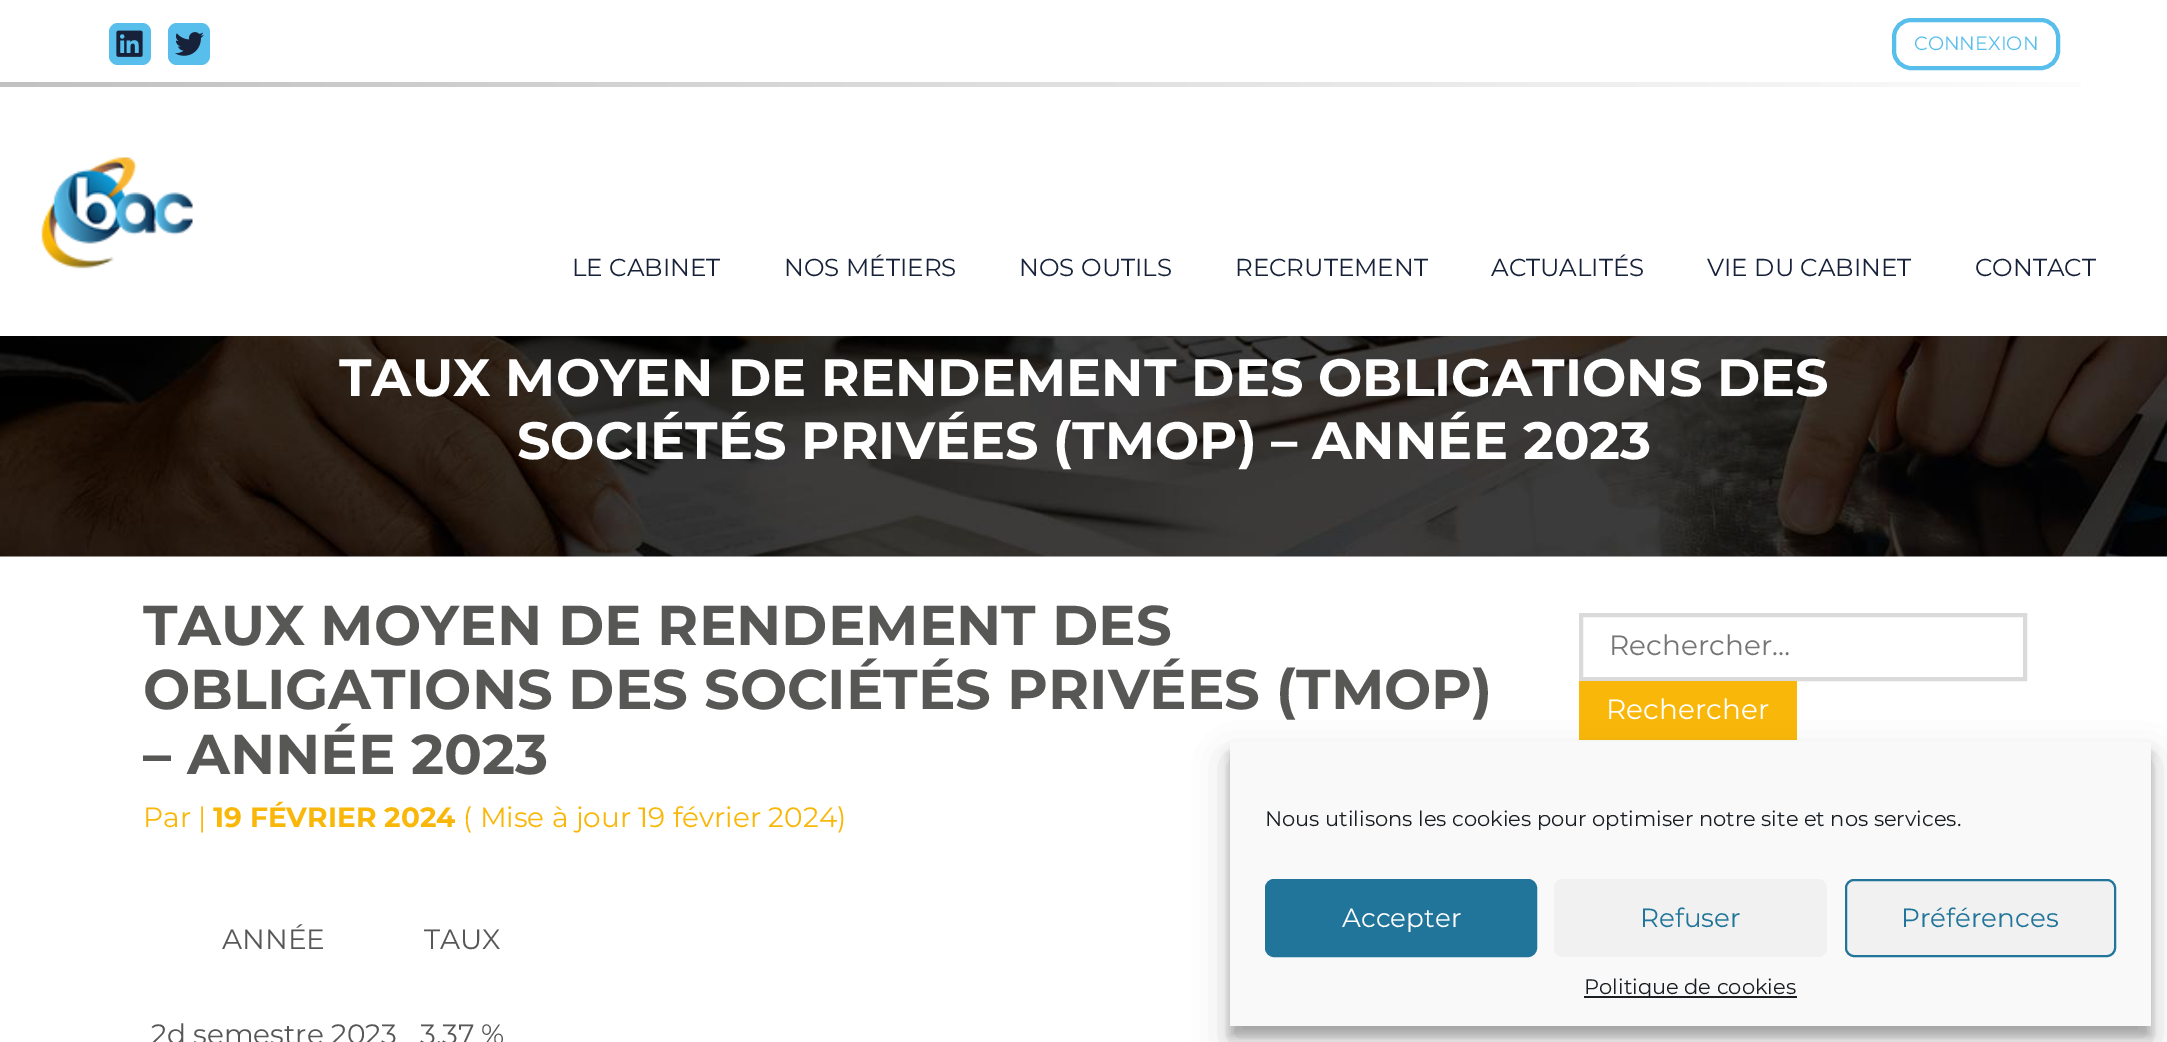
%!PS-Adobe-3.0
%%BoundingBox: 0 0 2167 1042
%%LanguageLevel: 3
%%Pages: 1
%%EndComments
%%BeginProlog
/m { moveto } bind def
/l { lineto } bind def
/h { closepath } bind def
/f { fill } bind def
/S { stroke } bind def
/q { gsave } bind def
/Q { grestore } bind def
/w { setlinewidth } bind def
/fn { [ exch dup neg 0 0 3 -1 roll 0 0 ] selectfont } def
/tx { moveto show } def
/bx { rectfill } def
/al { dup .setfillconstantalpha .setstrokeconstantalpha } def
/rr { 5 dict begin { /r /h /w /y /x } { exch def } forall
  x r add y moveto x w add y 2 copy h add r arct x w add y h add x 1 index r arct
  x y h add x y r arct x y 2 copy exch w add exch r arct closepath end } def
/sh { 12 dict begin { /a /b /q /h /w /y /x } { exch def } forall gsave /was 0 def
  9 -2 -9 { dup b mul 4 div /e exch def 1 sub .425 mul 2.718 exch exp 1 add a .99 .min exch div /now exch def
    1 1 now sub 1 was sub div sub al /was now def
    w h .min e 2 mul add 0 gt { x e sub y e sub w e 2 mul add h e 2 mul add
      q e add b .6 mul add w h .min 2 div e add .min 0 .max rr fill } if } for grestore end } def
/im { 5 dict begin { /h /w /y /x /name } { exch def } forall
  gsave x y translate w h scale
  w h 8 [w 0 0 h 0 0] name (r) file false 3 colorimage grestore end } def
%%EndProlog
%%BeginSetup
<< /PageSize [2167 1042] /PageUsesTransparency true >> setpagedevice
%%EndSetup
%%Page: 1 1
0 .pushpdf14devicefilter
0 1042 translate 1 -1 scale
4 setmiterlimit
1 setgray
0 0 2167 1042 bx
0.345 0.745 0.922 setrgbcolor
109 23 42 42 9 rr f
(image0.raw) 116 30 27 27 im
168 23 42 42 9 rr f
(image1.raw) 175 32 29 24 im
4 w
1894 20 164 48 17 rr S
/Montserrat-Regular 19.25 fn
(CONNEXION) 1914 50 tx
q 0 82 m 2081 82 l 2081 87 l 0 87 l h clip newpath
<< /ShadingType 2 /ColorSpace /DeviceRGB /Coords [0 85 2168 85] /Extend [true true] /Function << /FunctionType 2 /Domain [0 1] /C0 [0.757 0.757 0.757] /C1 [1 1 1] /N 1 >> >> shfill Q
(image2.raw) 41 157 152 112 im
/Montserrat-Regular 24.5 fn
0.09 0.129 0.224 setrgbcolor
(LE CABINET) 572 276 tx
(NOS MÉTIERS) 784 276 tx
(NOS OUTILS) 1019 276 tx
(RECRUTEMENT) 1235 276 tx
(ACTUALITÉS) 1491 276 tx
(VIE DU CABINET) 1707 276 tx
(CONTACT) 1975 276 tx
(image3.raw) 0 336 2167 221 im
/Montserrat-Bold 52.5 fn
1 setgray
(TAUX MOYEN DE RENDEMENT DES OBLIGATIONS DES) 339 396 tx
(SOCIÉTÉS PRIVÉES \(TMOP\) – ANNÉE 2023) 517 459 tx
/Montserrat-Bold 56 fn
0.341 0.341 0.337 setrgbcolor
(TAUX MOYEN DE RENDEMENT DES) 143 645 tx
(OBLIGATIONS DES SOCIÉTÉS PRIVÉES \(TMOP\)) 143 709 tx
(– ANNÉE 2023) 143 774 tx
/Montserrat-Regular 28 fn
0.976 0.718 0.035 setrgbcolor
(Par |) 143 827 tx
/Montserrat-Bold 28 fn
(19 FÉVRIER 2024) 213 827 tx
/Montserrat-Regular 28 fn
(\( Mise à jour 19 février 2024\)) 463 827 tx
0.341 0.341 0.337 setrgbcolor
(ANNÉE) 222 949 tx
(TAUX) 424 949 tx
(2d semestre 2023) 151 1044 tx
(3,37 %) 420 1044 tx
0.855 setgray
1581 615 444 64 rectstroke
0.459 setgray
(Rechercher…) 1609 655 tx
0.976 0.718 0.035 setrgbcolor
1579 681 218 59 bx
1 setgray
(Rechercher) 1606 719 tx
0 setgray
1230 753 921 283 0 5 0.23 sh
1230 760 921 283 0 17.5 0.19 sh
0.976 setgray
1230 742 921 284 bx
/Montserrat-Regular 21 fn
0.098 0.118 0.137 setrgbcolor
(Nous utilisons les cookies pour optimiser notre site et nos services.) 1265 826 tx
0.129 0.459 0.608 setrgbcolor
1266 880 270 76 8 rr q f Q
2 w
S
/Montserrat-Regular 26.25 fn
1 setgray
(Accepter) 1342 927 tx
0.945 setgray
1554 879 273 78 9 rr f
0.129 0.459 0.608 setrgbcolor
(Refuser) 1640 927 tx
0.945 setgray
1846 880 269 76 8 rr q f Q
0.129 0.459 0.608 setrgbcolor
S
(Préférences) 1901 927 tx
0.098 0.118 0.137 setrgbcolor
1584 996 213 2 bx
/Montserrat-Regular 21 fn
(Politique de cookies) 1584 994 tx
.poppdf14devicefilter showpage
%%EOF
